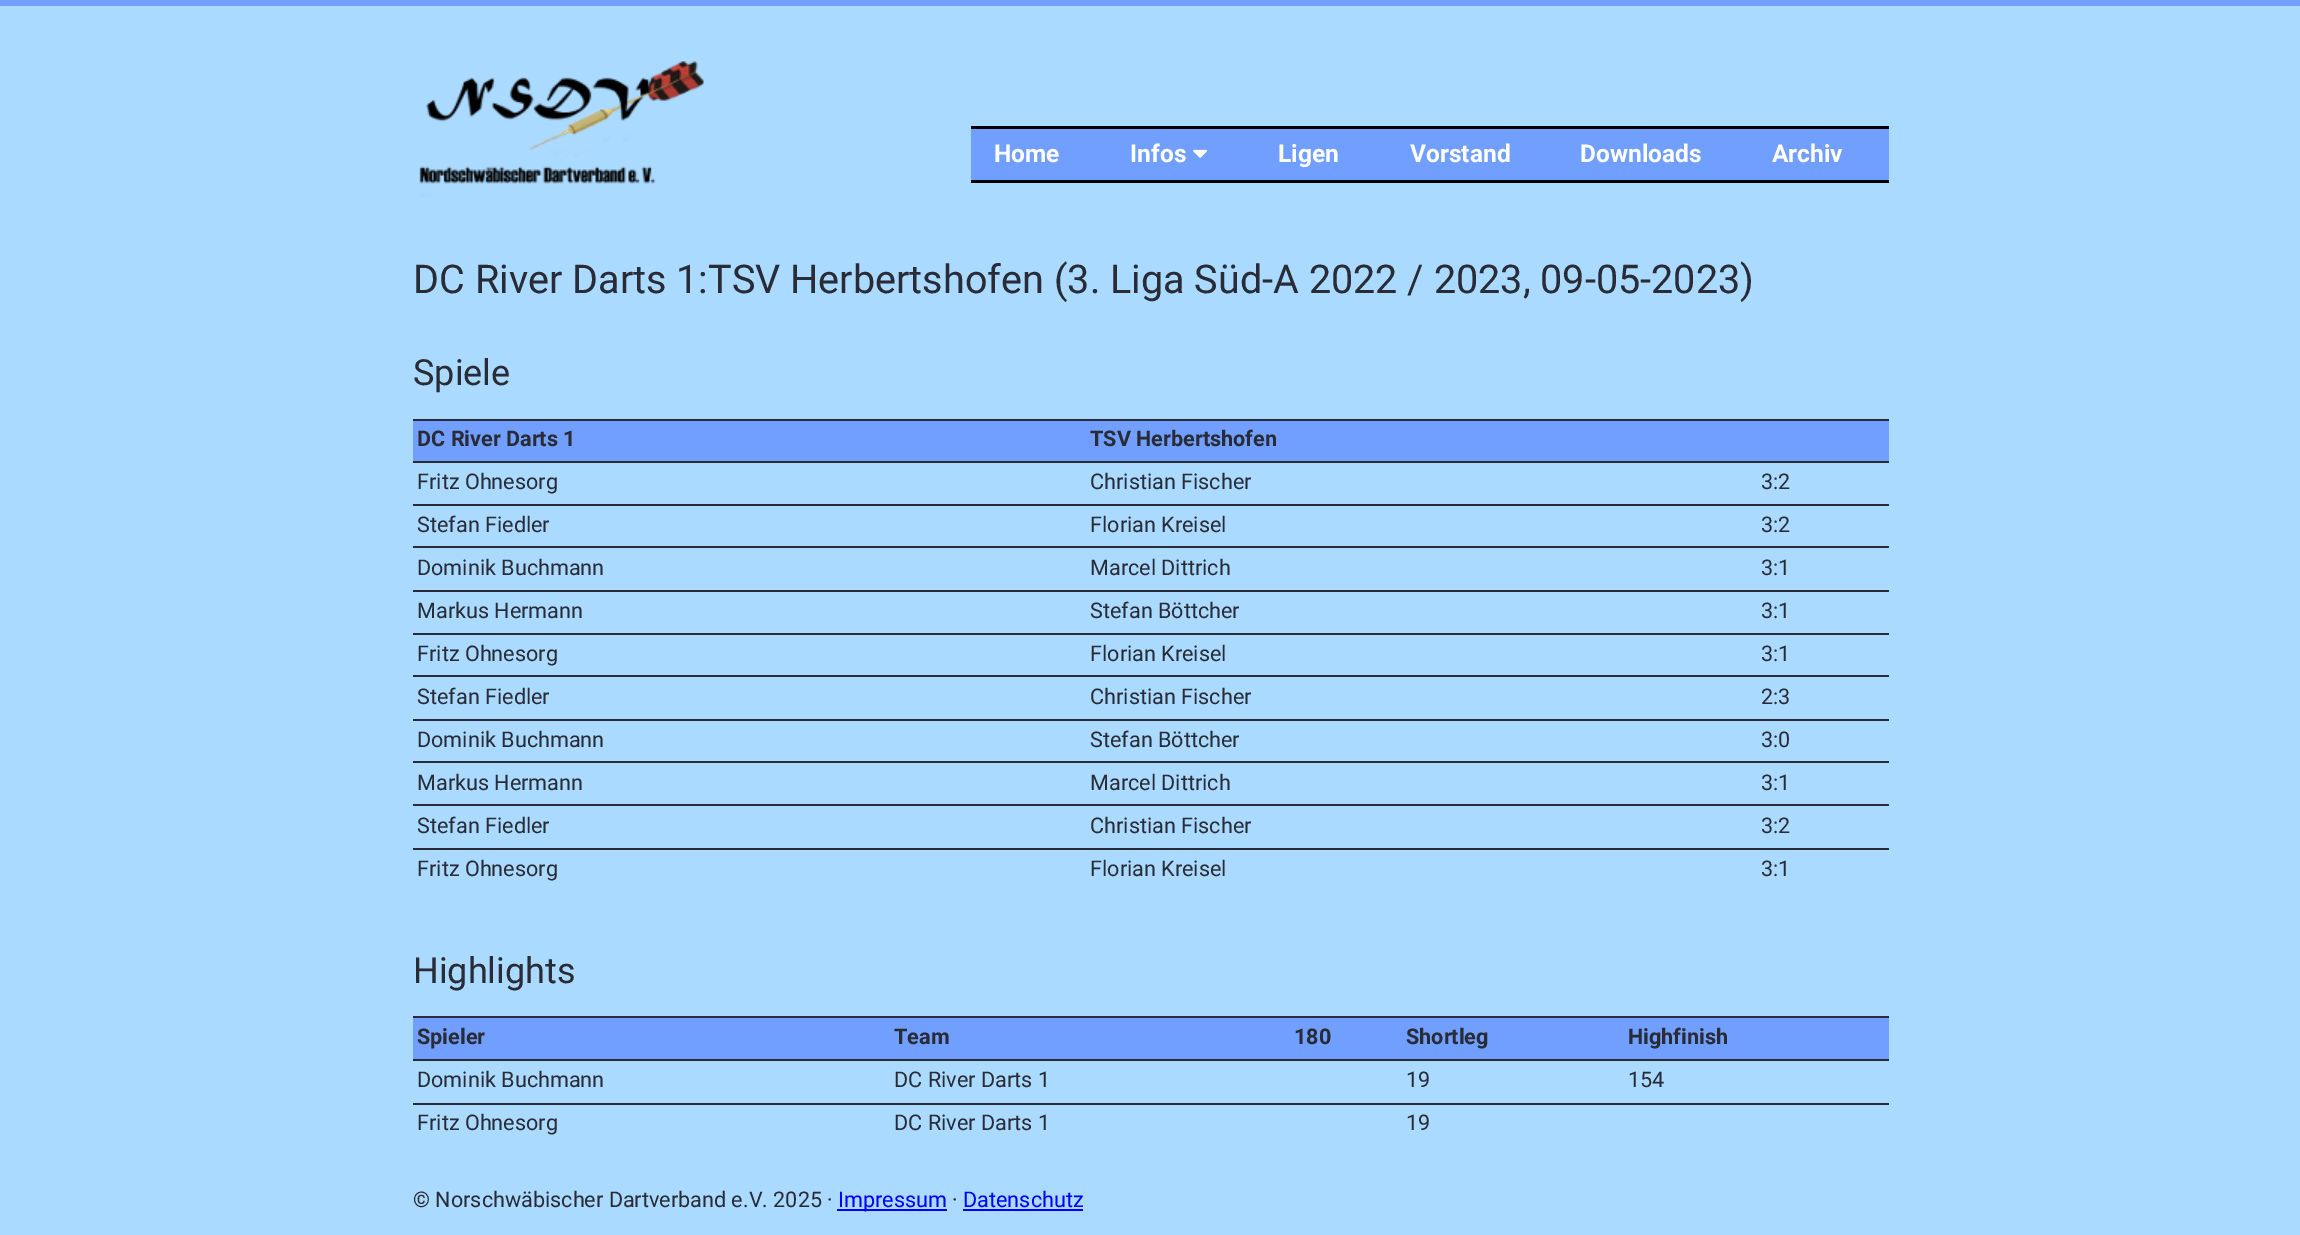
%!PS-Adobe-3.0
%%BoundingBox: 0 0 2300 1235
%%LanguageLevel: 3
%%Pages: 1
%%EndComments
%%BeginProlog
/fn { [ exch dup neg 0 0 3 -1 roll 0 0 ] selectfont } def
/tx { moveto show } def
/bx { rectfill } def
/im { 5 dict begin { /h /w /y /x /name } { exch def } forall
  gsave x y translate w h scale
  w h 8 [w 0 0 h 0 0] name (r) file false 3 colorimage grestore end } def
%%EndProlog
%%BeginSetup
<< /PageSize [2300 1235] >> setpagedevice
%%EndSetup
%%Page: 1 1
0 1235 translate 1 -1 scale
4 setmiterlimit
0.667 0.855 1 setrgbcolor
0 0 2300 1235 bx
0.443 0.624 1 setrgbcolor
0 0 2300 6 bx
(image0.raw) 419 61 286 136 im
971 129 918 51 bx
0 setgray
971 126 918 3 bx
971 180 918 3 bx
/Roboto-Bold 24.5 fn
1 setgray
(Home) 994 162 tx
(Infos) 1130 162 tx
(image1.raw) 1193 149 15 9 im
(Ligen) 1278 162 tx
(Vorstand) 1410 162 tx
(Downloads) 1580 162 tx
(Archiv) 1772 162 tx
/Roboto-Regular 39.6 fn
0.161 0.173 0.216 setrgbcolor
(DC River Darts 1:TSV Herbertshofen \(3. Liga Süd-A 2022 / 2023, 09-05-2023\)) 413 293 tx
/Roboto-Regular 36 fn
(Spiele) 413 385 tx
0.443 0.624 1 setrgbcolor
413 421 1476 40 bx
0.161 0.173 0.216 setrgbcolor
413 419 1476 2 bx
/Roboto-Bold 21.6 fn
(DC River Darts 1) 417 446 tx
(TSV Herbertshofen) 1090 446 tx
/Roboto-Regular 21.6 fn
(Fritz Ohnesorg) 417 489 tx
(Christian Fischer) 1090 489 tx
413 461 1476 2 bx
(3:2) 1761 489 tx
(Stefan Fiedler) 417 532 tx
(Florian Kreisel) 1090 532 tx
413 504 1476 2 bx
(3:2) 1761 532 tx
(Dominik Buchmann) 417 575 tx
(Marcel Dittrich) 1090 575 tx
413 546 1476 2 bx
(3:1) 1761 575 tx
(Markus Hermann) 417 618 tx
(Stefan Böttcher) 1090 618 tx
413 590 1476 2 bx
(3:1) 1761 618 tx
(Fritz Ohnesorg) 417 661 tx
(Florian Kreisel) 1090 661 tx
413 633 1476 2 bx
(3:1) 1761 661 tx
(Stefan Fiedler) 417 704 tx
(Christian Fischer) 1090 704 tx
413 675 1476 2 bx
(2:3) 1761 704 tx
(Dominik Buchmann) 417 747 tx
(Stefan Böttcher) 1090 747 tx
413 719 1476 2 bx
(3:0) 1761 747 tx
(Markus Hermann) 417 790 tx
(Marcel Dittrich) 1090 790 tx
413 761 1476 2 bx
(3:1) 1761 790 tx
(Stefan Fiedler) 417 833 tx
(Christian Fischer) 1090 833 tx
413 804 1476 2 bx
(3:2) 1761 833 tx
(Fritz Ohnesorg) 417 876 tx
(Florian Kreisel) 1090 876 tx
413 848 1476 2 bx
(3:1) 1761 876 tx
/Roboto-Regular 36 fn
(Highlights) 413 983 tx
0.443 0.624 1 setrgbcolor
413 1018 1476 41 bx
/Roboto-Bold 21.6 fn
0.161 0.173 0.216 setrgbcolor
(Spieler) 417 1044 tx
(Team) 894 1044 tx
(180) 1294 1044 tx
(Shortleg) 1406 1044 tx
413 1016 1476 2 bx
(Highfinish) 1628 1044 tx
/Roboto-Regular 21.6 fn
(Dominik Buchmann) 417 1087 tx
(DC River Darts 1) 894 1087 tx
(19) 1406 1087 tx
413 1059 1476 2 bx
(154) 1628 1087 tx
413 1103 1476 2 bx
(Fritz Ohnesorg) 417 1130 tx
(DC River Darts 1) 894 1130 tx
(19) 1406 1130 tx
(© Norschwäbischer Dartverband e.V. 2025 ·) 413 1207 tx
0 0 1 setrgbcolor
837 1209 110 2 bx
(Impressum) 838 1207 tx
0.161 0.173 0.216 setrgbcolor
(·) 952 1207 tx
0 0 1 setrgbcolor
(Datenschutz) 963 1207 tx
963 1209 120 2 bx
showpage
%%EOF
